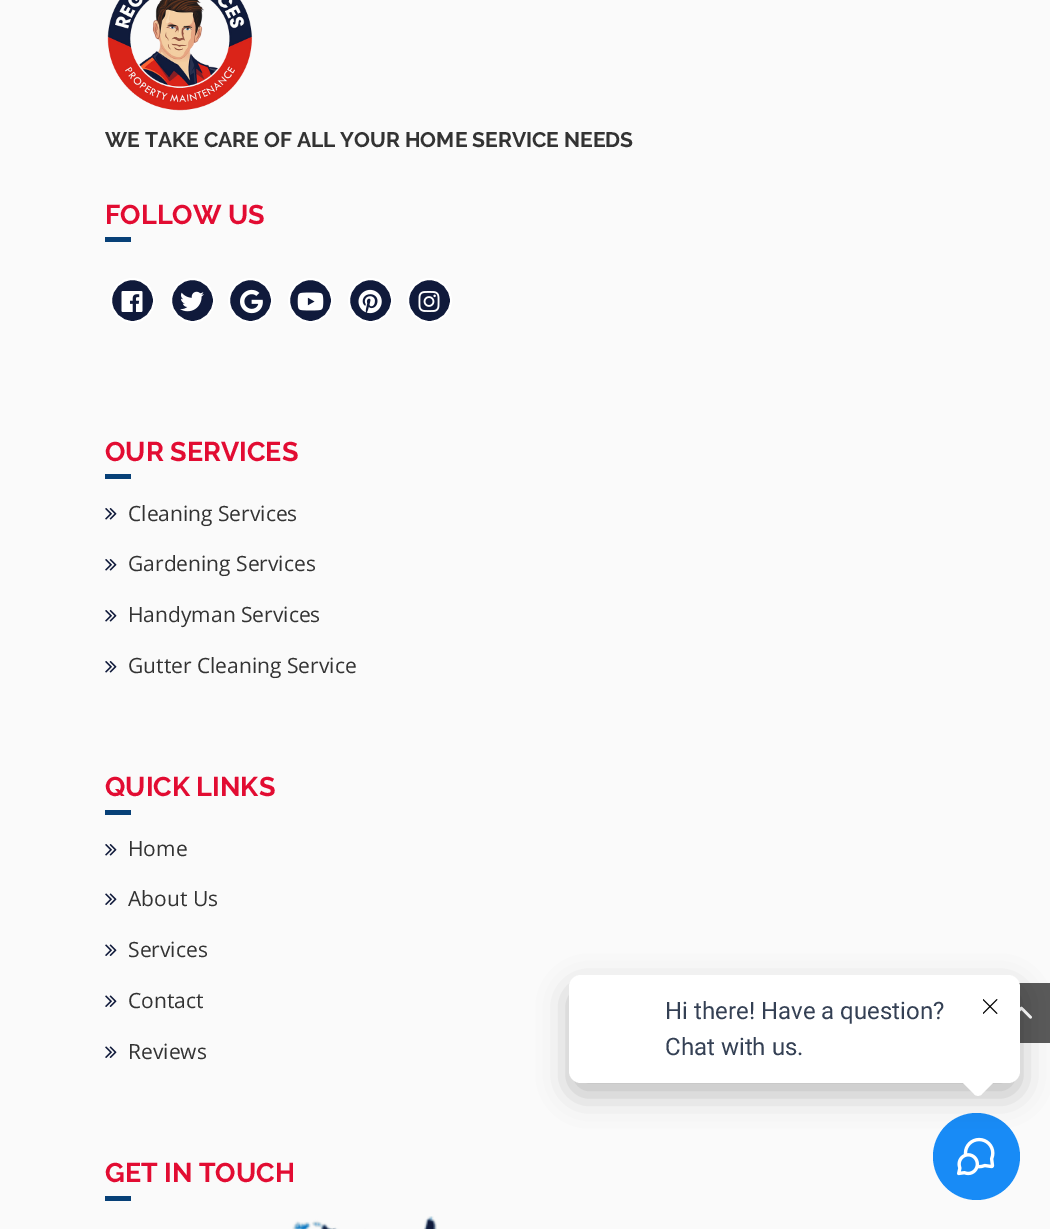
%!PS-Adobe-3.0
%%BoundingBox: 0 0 1050 1229
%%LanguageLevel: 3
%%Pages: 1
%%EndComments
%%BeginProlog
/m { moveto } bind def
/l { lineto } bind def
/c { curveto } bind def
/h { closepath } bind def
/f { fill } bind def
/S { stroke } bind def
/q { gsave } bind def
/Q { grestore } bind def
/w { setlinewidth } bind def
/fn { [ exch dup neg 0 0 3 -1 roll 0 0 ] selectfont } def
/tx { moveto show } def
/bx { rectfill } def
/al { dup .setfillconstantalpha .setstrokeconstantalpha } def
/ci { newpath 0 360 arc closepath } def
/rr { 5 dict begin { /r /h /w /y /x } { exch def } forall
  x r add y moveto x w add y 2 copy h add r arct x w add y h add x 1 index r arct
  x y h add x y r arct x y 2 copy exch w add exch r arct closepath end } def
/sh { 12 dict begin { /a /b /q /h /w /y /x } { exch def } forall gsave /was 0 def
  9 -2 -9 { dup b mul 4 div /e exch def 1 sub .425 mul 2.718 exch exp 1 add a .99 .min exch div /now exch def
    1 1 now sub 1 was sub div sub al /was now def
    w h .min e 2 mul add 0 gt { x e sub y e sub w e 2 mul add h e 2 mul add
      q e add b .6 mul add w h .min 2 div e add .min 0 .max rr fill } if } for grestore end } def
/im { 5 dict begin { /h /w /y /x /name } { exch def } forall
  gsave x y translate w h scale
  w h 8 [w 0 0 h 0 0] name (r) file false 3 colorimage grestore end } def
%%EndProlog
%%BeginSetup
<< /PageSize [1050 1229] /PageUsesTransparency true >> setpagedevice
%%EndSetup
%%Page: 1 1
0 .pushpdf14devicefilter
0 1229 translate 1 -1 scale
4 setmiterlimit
0.98 setgray
0 0 1050 1229 bx
(image0.raw) 107 0 146 111 im
/Raleway-Thin 21 fn
0.2 setgray
(WE TAKE CARE OF ALL YOUR HOME SERVICE NEEDS) 105 147 tx
/Raleway-Thin 27 fn
0.886 0.047 0.196 setrgbcolor
(FOLLOW US) 105 224 tx
0.027 0.251 0.467 setrgbcolor
105 237 26 5 bx
0.063 0.102 0.231 setrgbcolor
132.5 300.5 21.5 ci q f Q
1 setgray
2 w
S
(image1.raw) 121 291 22 21 im
0.063 0.102 0.231 setrgbcolor
192.5 300.5 21.5 ci q f Q
1 setgray
S
(image2.raw) 180 291 24 21 im
0.063 0.102 0.231 setrgbcolor
250.5 300.5 21.5 ci q f Q
1 setgray
S
(image3.raw) 240 289 23 25 im
0.063 0.102 0.231 setrgbcolor
310.5 300.5 21.5 ci q f Q
1 setgray
S
(image4.raw) 297 292 27 19 im
0.063 0.102 0.231 setrgbcolor
370.5 300.5 21.5 ci q f Q
1 setgray
S
(image5.raw) 358 289 24 25 im
0.063 0.102 0.231 setrgbcolor
429.5 300.5 21.5 ci q f Q
1 setgray
S
(image6.raw) 418 291 22 21 im
0.886 0.047 0.196 setrgbcolor
(OUR SERVICES) 105 461 tx
0.027 0.251 0.467 setrgbcolor
105 474 26 5 bx
(image7.raw) 105 508 12 12 im
/OpenSans-Regular 21 fn
0.2 setgray
(Cleaning Services) 128 521 tx
(image7.raw) 105 559 12 12 im
(Gardening Services) 128 571 tx
(image7.raw) 105 610 12 12 im
(Handyman Services) 128 622 tx
(image7.raw) 105 661 12 12 im
(Gutter Cleaning Service) 128 673 tx
/Raleway-Thin 27 fn
0.886 0.047 0.196 setrgbcolor
(QUICK LINKS) 105 796 tx
0.027 0.251 0.467 setrgbcolor
105 810 26 5 bx
(image7.raw) 105 844 12 12 im
/OpenSans-Regular 21 fn
0.2 setgray
(Home) 128 856 tx
(image8.raw) 105 893 12 12 im
(About Us) 128 906 tx
(image8.raw) 105 944 12 12 im
(Services) 128 957 tx
(image8.raw) 105 995 12 12 im
(Contact) 128 1008 tx
(image8.raw) 105 1046 12 12 im
(Reviews) 128 1059 tx
/Raleway-Thin 27 fn
0.886 0.047 0.196 setrgbcolor
(GET IN TOUCH) 105 1182 tx
0.027 0.251 0.467 setrgbcolor
105 1196 26 5 bx
(image9.raw) 292 1216 145 13 im
0.588 setgray
1019 983 31 60 bx
(image10.raw) 1020 1006 12 13 im
0.094 0.545 0.965 setrgbcolor
976.5 1156.5 43.5 ci f
(image12.raw) 957 1137 38 39 im
0.4 al
0 setgray
1019 983 31 60 bx
1 al
(image13.raw) 1020 1006 12 13 im
569 987 451 108 12 15 0.24 sh
1 setgray
569 975 451 108 12 rr f
/Roboto-Regular 24 fn
0.204 0.251 0.329 setrgbcolor
(Hi there! Have a question?) 665 1019 tx
(Chat with us.) 665 1055 tx
1 setgray
982 1060 m 995 1073 l 997.5 1075 997.5 1079 995 1081 c 982 1094 l 980 1096.5 976 1096.5 974 1094 c 961 1081 l 958.5 1079 958.5 1075 961 1073 c 974 1060 l 976 1057.5 980 1057.5 982 1060 c h f
(image11.raw) 983 999 15 15 im
.poppdf14devicefilter showpage
%%EOF
